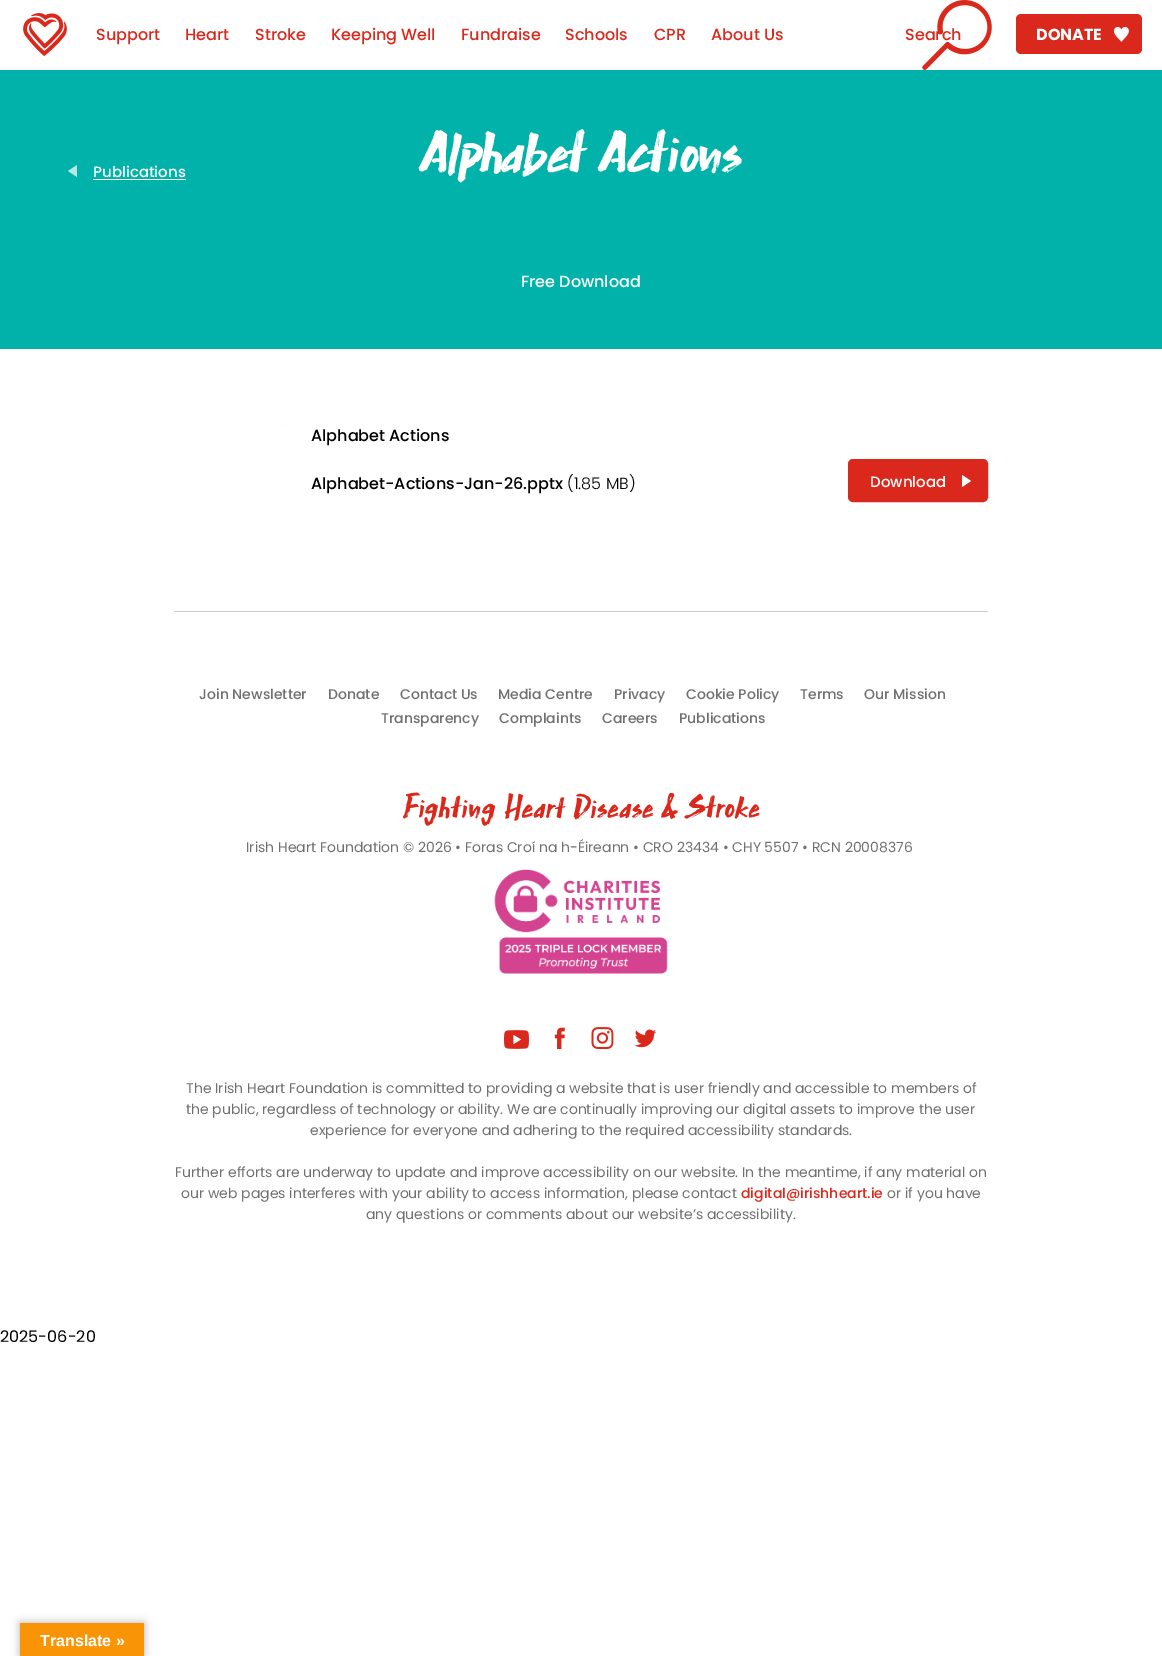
%!PS-Adobe-3.0
%%BoundingBox: 0 0 1162 1656
%%LanguageLevel: 3
%%Pages: 1
%%EndComments
%%BeginProlog
/m { moveto } bind def
/l { lineto } bind def
/h { closepath } bind def
/f { fill } bind def
/S { stroke } bind def
/q { gsave } bind def
/Q { grestore } bind def
/w { setlinewidth } bind def
/fn { [ exch dup neg 0 0 3 -1 roll 0 0 ] selectfont } def
/tx { moveto show } def
/bx { rectfill } def
/al { dup .setfillconstantalpha .setstrokeconstantalpha } def
/rr { 5 dict begin { /r /h /w /y /x } { exch def } forall
  x r add y moveto x w add y 2 copy h add r arct x w add y h add x 1 index r arct
  x y h add x y r arct x y 2 copy exch w add exch r arct closepath end } def
/sh { 12 dict begin { /a /b /q /h /w /y /x } { exch def } forall gsave /was 0 def
  9 -2 -9 { dup b mul 4 div /e exch def 1 sub .425 mul 2.718 exch exp 1 add a .99 .min exch div /now exch def
    1 1 now sub 1 was sub div sub al /was now def
    w h .min e 2 mul add 0 gt { x e sub y e sub w e 2 mul add h e 2 mul add
      q e add b .6 mul add w h .min 2 div e add .min 0 .max rr fill } if } for grestore end } def
/im { 5 dict begin { /h /w /y /x /name } { exch def } forall
  gsave x y translate w h scale
  w h 8 [w 0 0 h 0 0] name (r) file false 3 colorimage grestore end } def
%%EndProlog
%%BeginSetup
<< /PageSize [1162 1656] /PageUsesTransparency true >> setpagedevice
%%EndSetup
%%Page: 1 1
0 .pushpdf14devicefilter
0 1656 translate 1 -1 scale
4 setmiterlimit
1 setgray
0 0 1162 1656 bx
(image0.raw) 23 13 44 43 im
/Poppins-Medium 16 fn
0.855 0.161 0.11 setrgbcolor
(Support) 96 40 tx
(Heart) 185 40 tx
(Stroke) 255 40 tx
(Keeping Well) 331 40 tx
(Fundraise) 461 40 tx
(Schools) 565 40 tx
(CPR) 654 40 tx
(About Us) 711 40 tx
(image1.raw) 922 0 70 70 im
(Search) 905 40 tx
1016 14 126 40 5 rr f
/Poppins-Bold 16 fn
1 setgray
(DONATE) 1036 40 tx
(image2.raw) 1114 27 15 15 im
0 0.698 0.667 setrgbcolor
0 70 1162 279 bx
0.702 0.91 0.902 setrgbcolor
77 165 m 77 177 l 68 171 l h f
/Poppins-Medium 15 fn
1 setgray
(Publications) 93 177 tx
93 179 93 1 bx
/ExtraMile-Regular 60 fn
(Alphabet Actions) 421 170 tx
/Poppins-Medium 16 fn
(Free Download) 521 287 tx
(image3.raw) 174 424 112 112 im
0 setgray
(Alphabet Actions) 311 441 tx
(Alphabet-Actions-Jan-26.pptx) 311 489 tx
/Poppins-Light 16 fn
(\(1.85 MB\)) 567 489 tx
0.855 0.161 0.11 setrgbcolor
849 460 138 41 4 rr q f Q
2 w
S
/Poppins-Medium 15 fn
1 setgray
(Download) 870 487 tx
962 487 m 962 475 l 971 481 l h f
0.8 setgray
174 611 814 1 bx
/Poppins-Medium 14 fn
0.439 setgray
(Join Newsletter) 199 699 tx
(Donate) 328 699 tx
(Contact Us) 400 699 tx
(Media Centre) 498 699 tx
(Privacy) 614 699 tx
(Cookie Policy) 686 699 tx
(Terms) 800 699 tx
(Our Mission) 864 699 tx
(Transparency) 381 723 tx
(Complaints) 499 723 tx
(Careers) 602 723 tx
(Publications) 679 723 tx
(image4.raw) 403 792 357 34 im
/Poppins-Regular 14 fn
(Irish Heart Foundation © 2026 • Foras Croí na h-Éireann • CRO 23434 • CHY 5507 • RCN 20008376) 246 852 tx
(image5.raw) 494 869 174 105 im
(image6.raw) 504 1030 25 19 im
(image7.raw) 554 1027 11 22 im
(image8.raw) 591 1027 23 22 im
(image9.raw) 634 1029 23 19 im
(The Irish Heart Foundation is committed to providing a website that is user friendly and accessible to members of) 186 1093 tx
(the public, regardless of technology or ability. We are continually improving our digital assets to improve the user) 186 1114 tx
(experience for everyone and adhering to the required accessibility standards.) 310 1135 tx
(Further efforts are underway to update and improve accessibility on our website. In the meantime, if any material on) 175 1177 tx
(our web pages interferes with your ability to access information, please contact) 181 1198 tx
/Poppins-Medium 14 fn
0.855 0.161 0.11 setrgbcolor
(digital@irishheart.ie) 741 1198 tx
/Poppins-Regular 14 fn
0.439 setgray
(or if you have) 887 1198 tx
(any questions or comments about our website’s accessibility.) 366 1219 tx
/Poppins-Regular 16 fn
0 setgray
(2025-06-20) 0 1342 tx
20 1623 124 33 0 4.5 0.3 sh
0.973 0.58 0.024 setrgbcolor
20 1623 124 33 bx
/LiberationSans-Bold 16 fn
1 setgray
(Translate ») 40 1646 tx
.poppdf14devicefilter showpage
%%EOF
